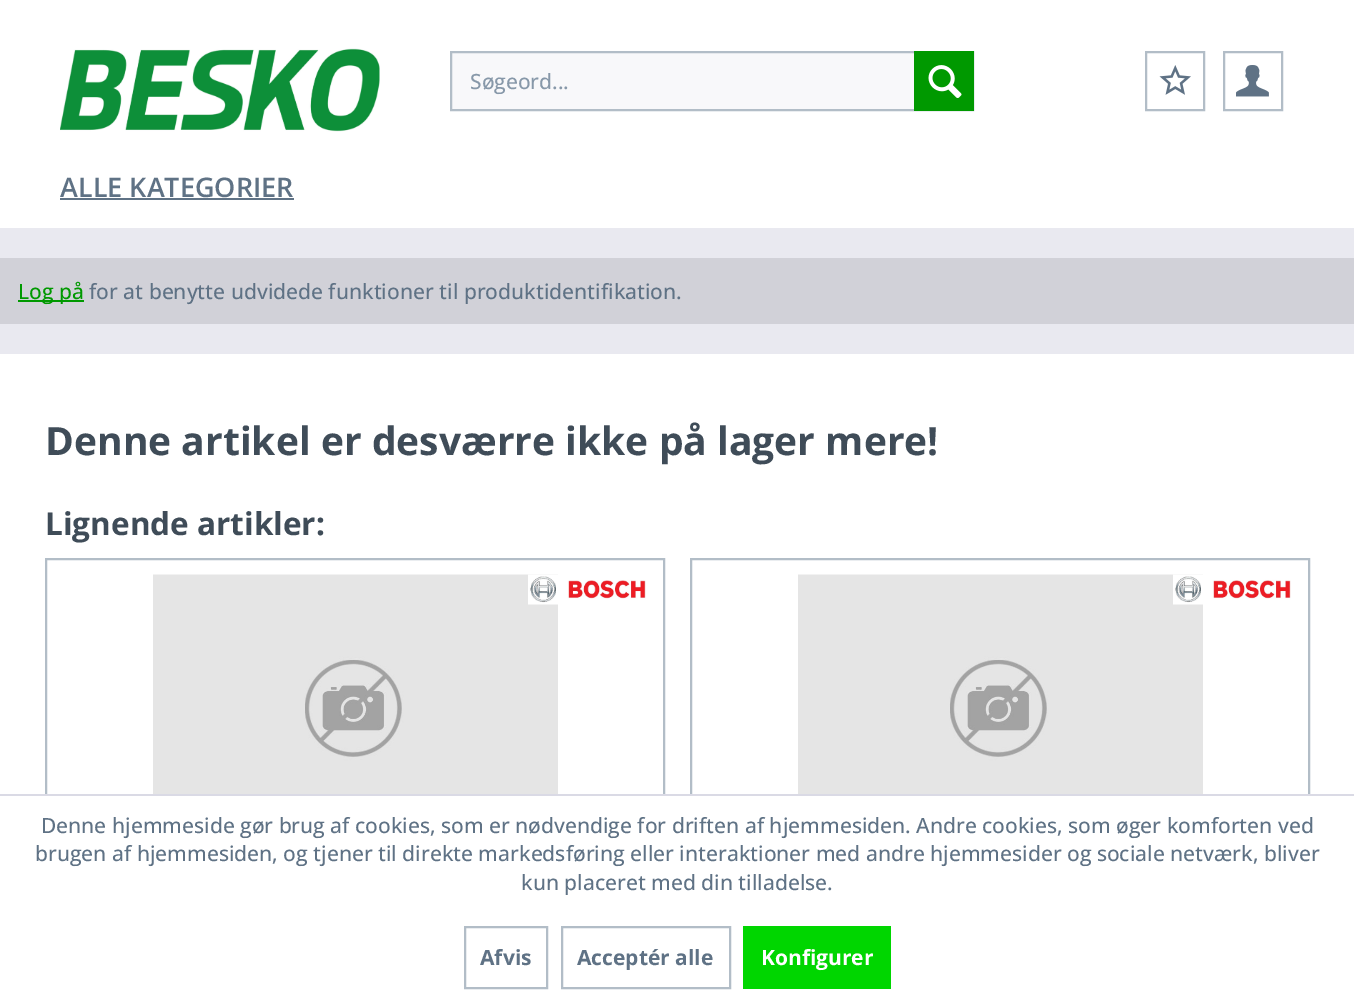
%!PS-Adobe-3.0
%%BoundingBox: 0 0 1354 1003
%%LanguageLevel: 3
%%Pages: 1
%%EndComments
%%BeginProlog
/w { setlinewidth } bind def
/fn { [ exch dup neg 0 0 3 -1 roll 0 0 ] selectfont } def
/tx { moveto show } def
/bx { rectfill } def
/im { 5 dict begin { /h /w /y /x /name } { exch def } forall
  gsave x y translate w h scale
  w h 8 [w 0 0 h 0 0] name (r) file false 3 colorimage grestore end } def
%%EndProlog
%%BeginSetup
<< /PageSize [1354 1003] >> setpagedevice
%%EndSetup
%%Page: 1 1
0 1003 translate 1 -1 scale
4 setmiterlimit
0.914 0.914 0.941 setrgbcolor
0 0 1354 1003 bx
1 setgray
0 0 1354 228 bx
(image0.raw) 60 48 320 84 im
0.973 0.973 0.98 setrgbcolor
452 53 462 56 bx
0.698 0.741 0.78 setrgbcolor
2 w
451 52 522 58 rectstroke
/OpenSans-Medium 21 fn
0.529 0.596 0.663 setrgbcolor
(Søgeord...) 470 89 tx
0 0.6 0 setrgbcolor
914 51 60 60 bx
(image1.raw) 928 65 34 33 im
0.698 0.741 0.78 setrgbcolor
1146 52 58 58 rectstroke
(image2.raw) 1159 65 32 30 im
1224 52 58 58 rectstroke
(image3.raw) 1236 65 33 32 im
/OpenSans-SemiBold 27 fn
0.373 0.447 0.522 setrgbcolor
(ALLE KATEGORIER) 60 197 tx
60 198 234 2 bx
0.82 0.82 0.847 setrgbcolor
0 258 1354 66 bx
0 0.6 0 setrgbcolor
18 300 66 2 bx
/OpenSans-Medium 21 fn
(Log på) 18 299 tx
0.373 0.447 0.522 setrgbcolor
(for at benytte udvidede funktioner til produktidentifikation.) 89 299 tx
1 setgray
0 354 1354 440 bx
/OpenSans-Bold 39 fn
0.247 0.298 0.345 setrgbcolor
(Denne artikel er desværre ikke på lager mere!) 45 455 tx
/OpenSans-Bold 31.5 fn
(Lignende artikler:) 45 535 tx
0.698 0.741 0.78 setrgbcolor
46 559 618 372 rectstroke
(image4.raw) 153 574 405 220 im
(image5.raw) 528 574 118 31 im
691 559 618 372 rectstroke
(image6.raw) 798 574 405 220 im
(image7.raw) 1173 574 118 31 im
1 setgray
0 796 1354 207 bx
0.855 0.855 0.898 setrgbcolor
0 794 1354 2 bx
/OpenSans-Medium 21 fn
0.373 0.447 0.522 setrgbcolor
(Denne hjemmeside gør brug af cookies, som er nødvendige for driften af hjemmesiden. Andre cookies, som øger komforten ved) 41 833 tx
(brugen af hjemmesiden, og tjener til direkte markedsføring eller interaktioner med andre hjemmesider og sociale netværk, bliver) 35 861 tx
(kun placeret med din tilladelse.) 521 890 tx
0.698 0.741 0.78 setrgbcolor
465 927 82 61 rectstroke
/OpenSans-Bold 21 fn
0.373 0.447 0.522 setrgbcolor
(Afvis) 480 965 tx
0.698 0.741 0.78 setrgbcolor
562 927 168 61 rectstroke
0.373 0.447 0.522 setrgbcolor
(Acceptér alle) 577 965 tx
0 0.839 0 setrgbcolor
743 926 148 63 bx
1 setgray
(Konfigurer) 761 965 tx
showpage
%%EOF
